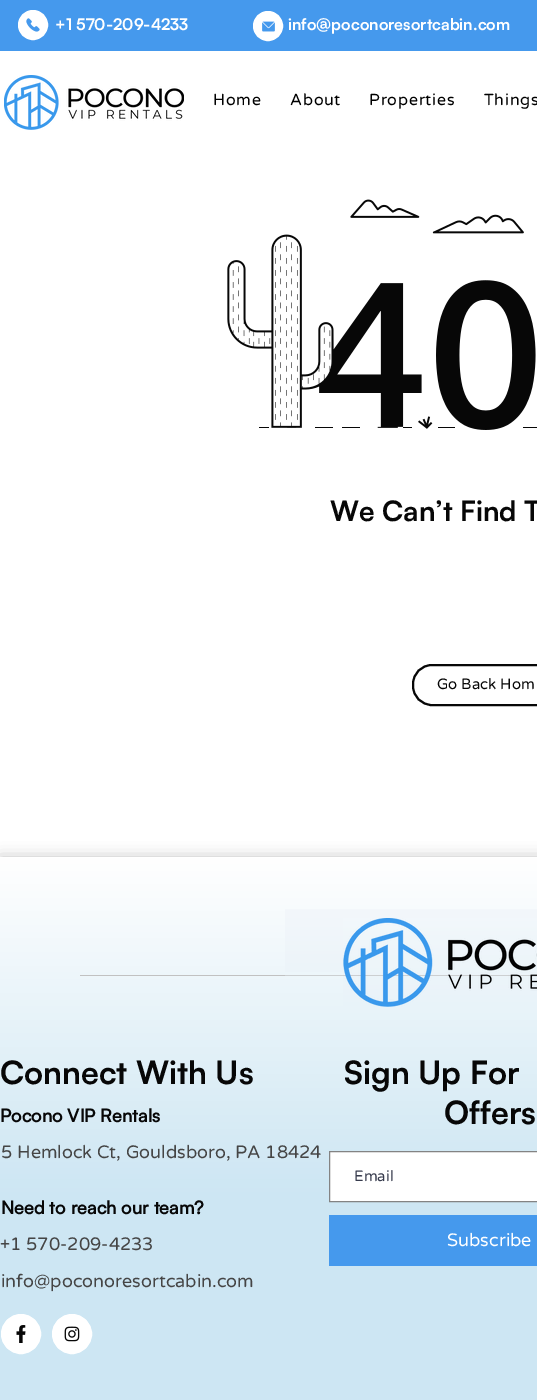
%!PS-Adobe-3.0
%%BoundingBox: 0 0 537 1400
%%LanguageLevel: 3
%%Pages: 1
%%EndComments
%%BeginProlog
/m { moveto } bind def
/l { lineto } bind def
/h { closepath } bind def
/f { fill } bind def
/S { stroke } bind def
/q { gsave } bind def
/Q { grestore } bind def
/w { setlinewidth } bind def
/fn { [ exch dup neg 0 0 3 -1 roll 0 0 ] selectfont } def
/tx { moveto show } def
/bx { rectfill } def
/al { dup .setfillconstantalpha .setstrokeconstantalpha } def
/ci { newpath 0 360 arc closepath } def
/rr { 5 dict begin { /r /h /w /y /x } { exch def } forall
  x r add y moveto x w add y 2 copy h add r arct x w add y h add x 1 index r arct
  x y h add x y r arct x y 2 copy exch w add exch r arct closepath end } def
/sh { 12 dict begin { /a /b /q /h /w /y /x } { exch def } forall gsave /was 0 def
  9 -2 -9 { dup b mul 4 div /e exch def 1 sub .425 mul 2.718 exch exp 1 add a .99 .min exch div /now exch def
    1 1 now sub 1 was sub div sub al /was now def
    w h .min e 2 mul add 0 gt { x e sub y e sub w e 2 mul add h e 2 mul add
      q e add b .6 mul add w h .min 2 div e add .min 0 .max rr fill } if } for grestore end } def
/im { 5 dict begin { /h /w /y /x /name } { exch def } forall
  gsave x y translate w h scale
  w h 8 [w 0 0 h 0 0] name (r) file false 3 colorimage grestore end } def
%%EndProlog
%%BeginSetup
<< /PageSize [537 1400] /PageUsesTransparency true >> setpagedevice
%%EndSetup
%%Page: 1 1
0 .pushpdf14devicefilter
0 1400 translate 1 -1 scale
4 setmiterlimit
1 setgray
0 0 537 1400 bx
0.271 0.6 0.929 setrgbcolor
0 0 537 51 bx
1 setgray
268 26 14.5 ci q f Q
S
(image0.raw) 262 21 13 11 im
33 25 14.5 ci q f Q
S
(image1.raw) 26 18 14 14 im
/Satoshi-Bold 16 fn
(+1 570-209-4233) 55 30 tx
(info@poconoresortcabin.com) 288 30 tx
(image2.raw) 4 75 180 55 im
/VarelaRound-Regular 16 fn
0 setgray
213 105 m 0.75 0 (Home) ashow
290 105 m 0.75 0 (About) ashow
369 105 m 0.75 0 (Properties) ashow
484 105 m 0.75 0 (Things) ashow
(image3.raw) 227 199 310 231 im
/Satoshi-Bold 28 fn
0.027 setgray
(We Can’t Find T) 330 521 tx
2 w
413 665 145 40 19 rr S
/VarelaRound-Regular 15 fn
(Go Back Hom) 437 689 tx
0 setgray
0 858 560 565 0 7.5 0.25 sh
q 0 857 m 537 857 l 537 1400 l 0 1400 l h clip newpath
<< /ShadingType 2 /ColorSpace /DeviceRGB /Coords [490 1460 490 857] /Extend [true true] /Function << /FunctionType 3 /Domain [0 1] /Functions [<< /FunctionType 2 /Domain [0 1] /C0 [0.804 0.902 0.953] /C1 [0.804 0.902 0.953] /N 1 >> << /FunctionType 2 /Domain [0 1] /C0 [0.804 0.902 0.953] /C1 [1 1 1] /N 1 >>] /Bounds [0.44] /Encode [0 1 0 1] >> >> shfill Q
q 285 909 m 537 909 l 537 972 l 285 972 l h clip newpath
<< /ShadingType 2 /ColorSpace /DeviceRGB /Coords [490 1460 490 857] /Extend [true true] /Function << /FunctionType 3 /Domain [0 1] /Functions [<< /FunctionType 2 /Domain [0 1] /C0 [0.835 0.914 0.957] /C1 [0.835 0.914 0.957] /N 1 >> << /FunctionType 2 /Domain [0 1] /C0 [0.835 0.914 0.957] /C1 [0.973 0.98 0.988] /N 1 >>] /Bounds [0.44] /Encode [0 1 0 1] >> >> shfill Q
0.8 0.812 0.82 setrgbcolor
285 975 252 1 bx
(image4.raw) 343 918 194 89 im
0.757 setgray
80 975 205 1 bx
/Satoshi-Bold 32 fn
0.027 setgray
(Connect With Us) 0 1084 tx
/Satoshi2-Bold 18 fn
(Pocono VIP Rentals) 0 1122 tx
/VarelaRound-Regular 18 fn
0.271 setgray
(5 Hemlock Ct, Gouldsboro, PA 18424) 1 1158 tx
/Satoshi2-Bold 18 fn
0.027 setgray
(Need to reach our team?) 1 1214 tx
/VarelaRound-Regular 18 fn
0.271 setgray
(+1 570-209-4233) 0 1250 tx
(info@poconoresortcabin.com) 1 1287 tx
1 setgray
21 1334 19.5 ci q f Q
1 w
S
(image5.raw) 16 1325 10 18 im
72 1334 19.5 ci q f Q
S
(image6.raw) 64 1326 16 16 im
/Satoshi-Bold 32 fn
0.027 setgray
(Sign Up For) 344 1084 tx
(Offers) 444 1124 tx
1 setgray
329.5 1151.5 m 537.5 1151.5 l 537.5 1201.5 l 329.5 1201.5 l h q f Q
0.514 setgray
S
/VarelaRound-Regular 15 fn
0.216 0.231 0.302 setrgbcolor
(Email) 354 1181 tx
0.271 0.6 0.929 setrgbcolor
329 1215 208 51 bx
/VarelaRound-Regular 18 fn
1 setgray
(Subscribe) 447 1246 tx
.poppdf14devicefilter showpage
%%EOF
